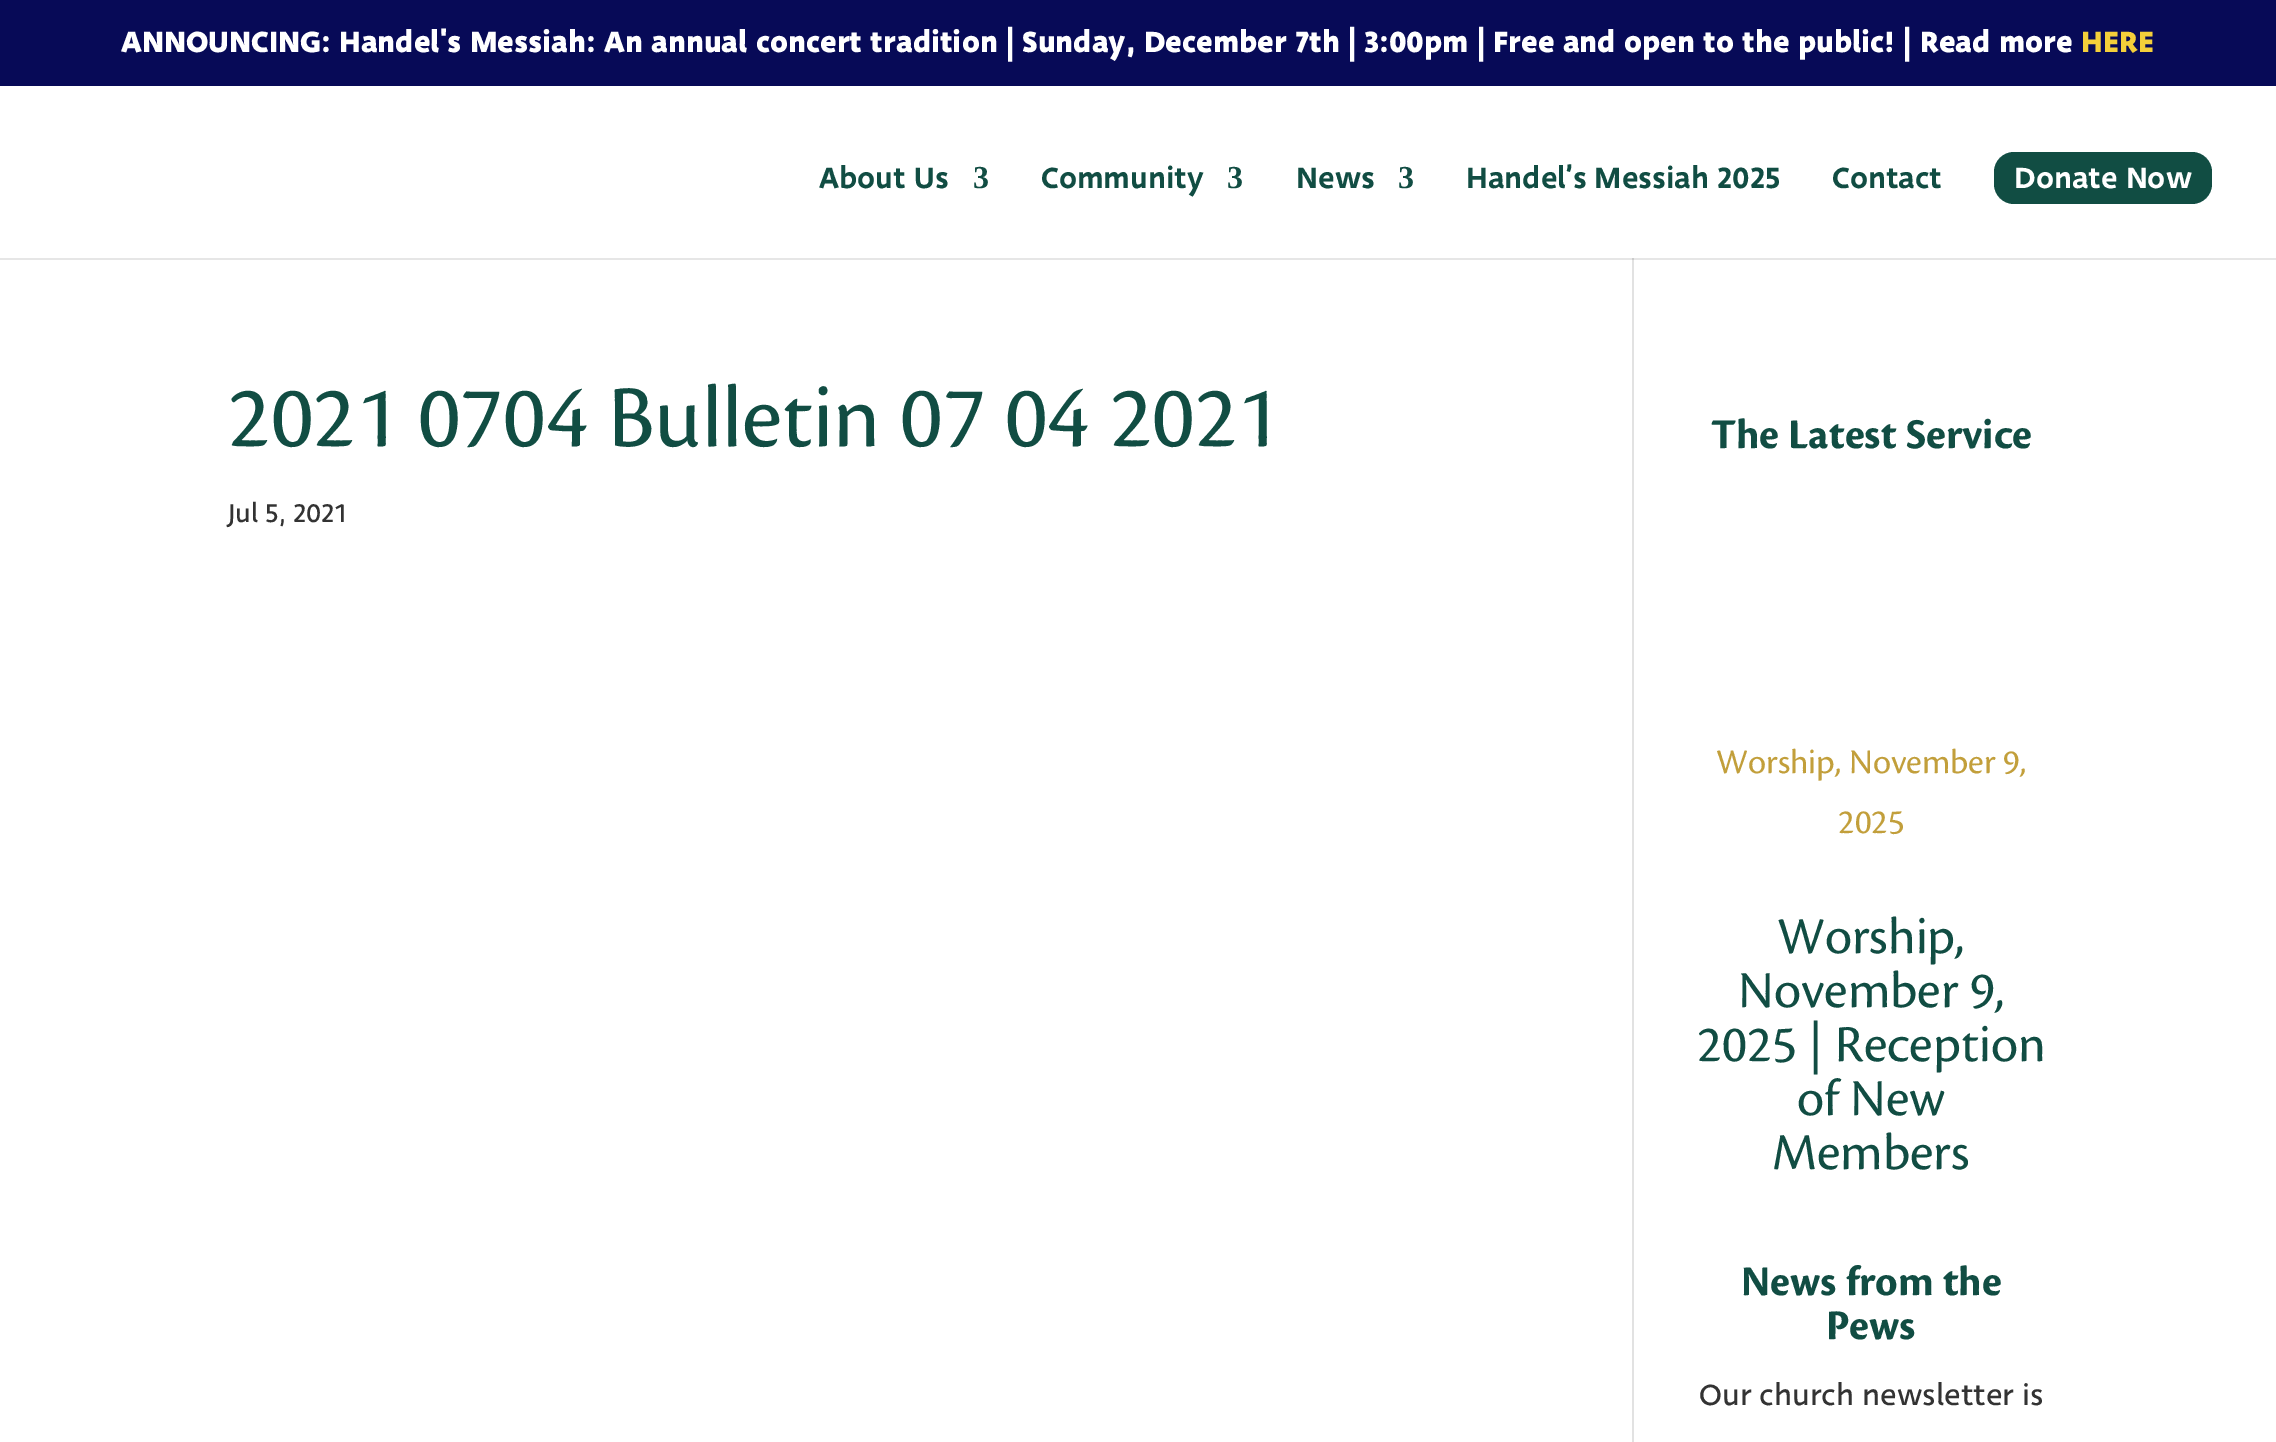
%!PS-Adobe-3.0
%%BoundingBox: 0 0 2276 1442
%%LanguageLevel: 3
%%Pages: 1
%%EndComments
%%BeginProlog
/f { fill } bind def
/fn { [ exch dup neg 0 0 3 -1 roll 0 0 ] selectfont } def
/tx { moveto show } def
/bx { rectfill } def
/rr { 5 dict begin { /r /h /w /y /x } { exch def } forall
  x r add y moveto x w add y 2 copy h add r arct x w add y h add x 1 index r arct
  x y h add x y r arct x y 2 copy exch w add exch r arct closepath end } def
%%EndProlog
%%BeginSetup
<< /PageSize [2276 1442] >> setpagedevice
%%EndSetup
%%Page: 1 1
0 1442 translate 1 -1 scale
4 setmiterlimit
1 setgray
0 0 2276 1442 bx
0.902 setgray
0 258 2276 2 bx
0.027 0.039 0.341 setrgbcolor
0 0 2276 86 bx
/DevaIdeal-Bold 32 fn
1 setgray
(ANNOUNCING: Handel's Messiah: An annual concert tradition | Sunday, December 7th | 3:00pm | Free and open to the public! | Read more) 121 52 tx
0.957 0.812 0.227 setrgbcolor
(HERE) 2081 52 tx
/DevaIdeal-Medium 32 fn
0.067 0.302 0.263 setrgbcolor
(About Us) 819 188 tx
/LiberationSerif-Bold 32 fn
(3) 973 188 tx
/DevaIdeal-Medium 32 fn
(Community) 1041 188 tx
/LiberationSerif-Bold 32 fn
(3) 1227 188 tx
/DevaIdeal-Medium 32 fn
(News) 1296 188 tx
/LiberationSerif-Bold 32 fn
(3) 1398 188 tx
/DevaIdeal-Medium 32 fn
(Handel’s Messiah 2025) 1466 188 tx
(Contact) 1832 188 tx
1994 152 218 52 20 rr f
1 setgray
(Donate Now) 2014 188 tx
0.886 setgray
1632 258 2 1184 bx
0.796 setgray
1632 258 2 2 bx
/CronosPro-Regular 92 fn
0.067 0.302 0.263 setrgbcolor
(2021 0704 Bulletin 07 04 2021) 228 446 tx
/DevaIdeal-Regular 28 fn
0.2 setgray
(Jul 5, 2021) 228 522 tx
/CronosPro-Bold 44 fn
0.067 0.302 0.263 setrgbcolor
(The Latest Service) 1711 448 tx
/CronosPro-Regular 36 fn
0.761 0.624 0.231 setrgbcolor
(Worship, November 9,) 1716 773 tx
(2025) 1838 833 tx
/CronosPro-Regular 54 fn
0.067 0.302 0.263 setrgbcolor
(Worship,) 1777 953 tx
(November 9,) 1738 1007 tx
(2025 | Reception) 1697 1061 tx
(of New) 1797 1115 tx
(Members) 1772 1169 tx
/CronosPro-Bold 44 fn
(News from the) 1741 1295 tx
(Pews) 1826 1339 tx
/DevaIdeal-Regular 32 fn
0.2 setgray
(Our church newsletter is) 1699 1405 tx
showpage
%%EOF
